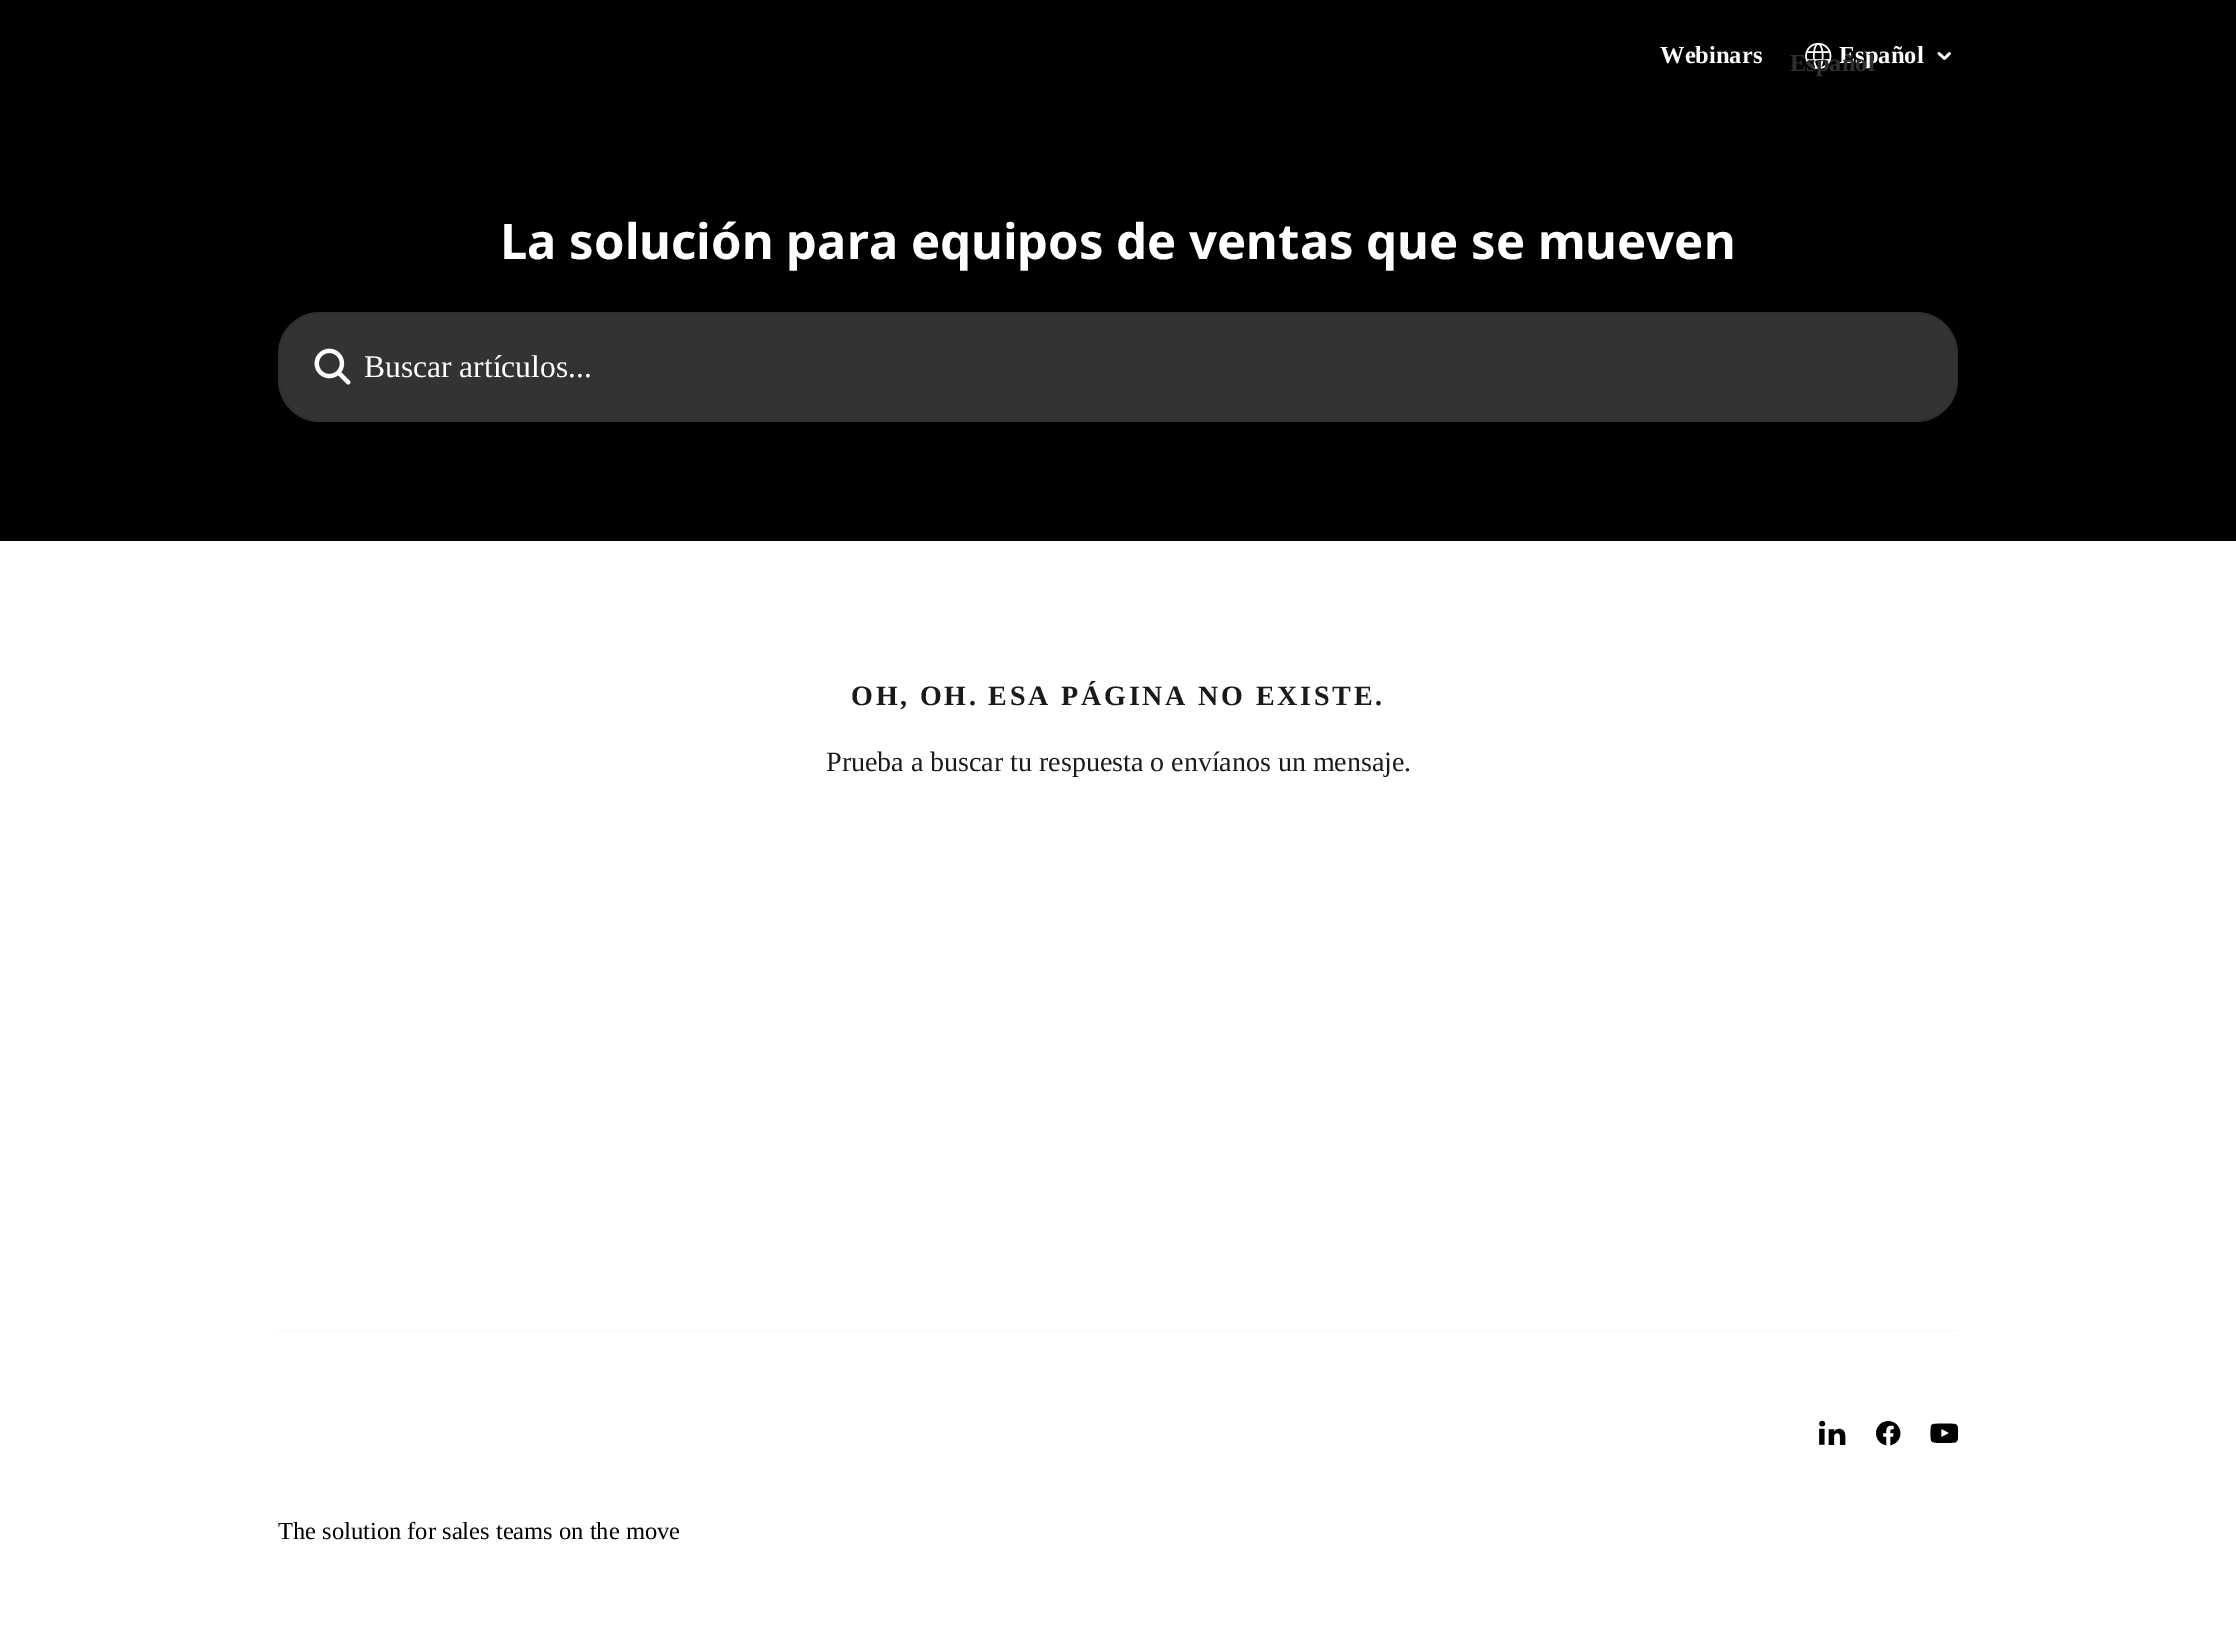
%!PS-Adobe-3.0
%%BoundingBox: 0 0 2236 1636
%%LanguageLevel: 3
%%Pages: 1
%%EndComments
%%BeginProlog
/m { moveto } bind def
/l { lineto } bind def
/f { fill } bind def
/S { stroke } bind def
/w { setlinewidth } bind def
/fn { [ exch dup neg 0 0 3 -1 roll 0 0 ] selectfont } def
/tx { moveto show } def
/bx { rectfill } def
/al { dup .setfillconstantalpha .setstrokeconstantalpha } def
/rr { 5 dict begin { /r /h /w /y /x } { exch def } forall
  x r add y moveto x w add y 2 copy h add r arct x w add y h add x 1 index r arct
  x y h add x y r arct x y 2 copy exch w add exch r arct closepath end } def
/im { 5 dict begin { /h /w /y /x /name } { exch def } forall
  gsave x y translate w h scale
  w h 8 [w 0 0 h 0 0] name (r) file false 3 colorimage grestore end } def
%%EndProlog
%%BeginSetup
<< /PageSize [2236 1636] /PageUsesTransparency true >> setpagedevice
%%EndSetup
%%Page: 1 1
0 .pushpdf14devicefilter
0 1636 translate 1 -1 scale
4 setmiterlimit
1 setgray
0 0 2236 1636 bx
0 setgray
0 0 2236 541 bx
/LiberationSerif-Bold 24.5 fn
1 setgray
(Webinars) 1660 63 tx
(image0.raw) 1805 42 27 28 im
(Español) 1839 63 tx
0.184 setgray
(Español) 1790 71 tx
1 setgray
2.6 w
1 setlinecap
1 setlinejoin
1939 53.5 m 1944.5 58.5 l 1949.5 53.5 l S
/NotoSans-Bold 49 fn
(La solución para equipos de ventas que se mueven) 500 259 tx
0.2 setgray
278 312 1680 110 42 rr f
0.08 al
0 setgray
2 w
0 setlinecap
0 setlinejoin
279 313 1678 108 41 rr S
1 al
(image1.raw) 314 348 37 37 im
/LiberationSerif-Regular 31.5 fn
1 setgray
(Buscar artículos...) 364 377 tx
/LiberationSerif-Bold 28 fn
0.102 setgray
851 705 m 2.8 0 (OH, OH. ESA PÁGINA NO EXISTE.) ashow
/LiberationSerif-Regular 28 fn
(Prueba a buscar tu respuesta o envíanos un mensaje.) 826 771 tx
0.98 0.98 0.984 setrgbcolor
278 1330 1680 2 bx
(image2.raw) 1819 1420 27 25 im
(image3.raw) 1876 1421 25 25 im
(image4.raw) 1930 1423 28 20 im
/LiberationSerif-Regular 24.5 fn
0 setgray
(The solution for sales teams on the move) 278 1539 tx
.poppdf14devicefilter showpage
%%EOF
